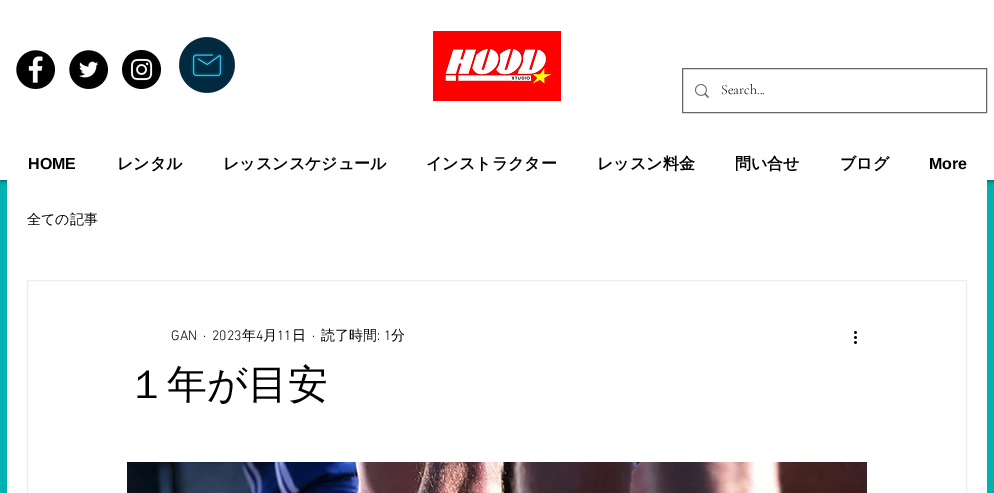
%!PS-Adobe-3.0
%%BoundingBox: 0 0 994 493
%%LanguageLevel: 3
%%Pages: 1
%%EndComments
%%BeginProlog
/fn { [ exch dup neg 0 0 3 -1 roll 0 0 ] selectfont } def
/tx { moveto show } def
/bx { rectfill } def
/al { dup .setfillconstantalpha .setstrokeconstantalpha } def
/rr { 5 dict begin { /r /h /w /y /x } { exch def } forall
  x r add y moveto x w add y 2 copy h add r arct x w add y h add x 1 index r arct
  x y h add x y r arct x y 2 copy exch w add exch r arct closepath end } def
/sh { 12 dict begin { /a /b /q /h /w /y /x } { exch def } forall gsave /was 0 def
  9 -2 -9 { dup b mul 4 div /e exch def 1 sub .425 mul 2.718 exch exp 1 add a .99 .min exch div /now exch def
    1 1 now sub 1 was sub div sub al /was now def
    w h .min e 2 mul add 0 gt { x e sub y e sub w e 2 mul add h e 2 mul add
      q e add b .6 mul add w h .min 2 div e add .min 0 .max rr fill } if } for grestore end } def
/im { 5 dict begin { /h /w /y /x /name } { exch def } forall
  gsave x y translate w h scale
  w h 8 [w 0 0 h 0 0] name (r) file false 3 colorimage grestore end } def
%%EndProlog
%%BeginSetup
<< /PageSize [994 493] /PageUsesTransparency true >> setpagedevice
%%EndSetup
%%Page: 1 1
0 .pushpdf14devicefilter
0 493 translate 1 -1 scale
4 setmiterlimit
0.004 0.694 0.686 setrgbcolor
0 0 994 493 bx
0 setgray
0 0 994 180 0 2.5 0.7 sh
1 setgray
0 0 994 180 bx
(image0.raw) 16 50 39 39 im
(image1.raw) 69 50 39 39 im
(image2.raw) 122 50 39 39 im
(image3.raw) 179 37 56 56 im
(image4.raw) 433 31 128 70 im
0.4 setgray
682.5 68.5 304 44 rectstroke
(image5.raw) 695 84 14 14 im
/CormorantGaramond-Light 14 fn
0 setgray
(Search...) 721 94 tx
/LiberationSans-Bold 16 fn
(HOME) 28 169 tx
/WenQuanYiZenHei-Bold 16 fn
(レンタル) 117 169 tx
(レッスンスケジュール) 223 169 tx
(インストラクター) 426 169 tx
(レッスン料金) 597 169 tx
(問い合せ) 735 169 tx
(ブログ) 840 169 tx
/LiberationSans-Bold 16 fn
(More) 929 169 tx
1 setgray
7 180 980 313 bx
/WenQuanYiZenHei-Medium 14 fn
0 setgray
(全ての記事) 27 224 tx
0.933 0.925 0.925 setrgbcolor
27.5 280.5 939 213 rectstroke
/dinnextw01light-Light 14 fn
0 setgray
(GAN) 171 340 tx
(·) 203 340 tx
(2023) 212 340 tx
/WenQuanYiZenHei-Medium 14 fn
(年) 242 340 tx
/dinnextw01light-Light 14 fn
(4) 256 340 tx
/WenQuanYiZenHei-Medium 14 fn
(月) 263 340 tx
/dinnextw01light-Light 14 fn
(11) 277 340 tx
/WenQuanYiZenHei-Medium 14 fn
(日) 292 340 tx
/dinnextw01light-Light 14 fn
(·) 312 340 tx
/WenQuanYiZenHei-Medium 14 fn
(読了時間) 321 340 tx
/dinnextw01light-Light 14 fn
(: 1) 377 340 tx
/WenQuanYiZenHei-Medium 14 fn
(分) 391 340 tx
(image6.raw) 854 331 3 13 im
/WenQuanYiZenHei-Medium 40 fn
(１年が目安) 127 398 tx
(image7.raw) 127 462 740 31 im
.poppdf14devicefilter showpage
%%EOF
